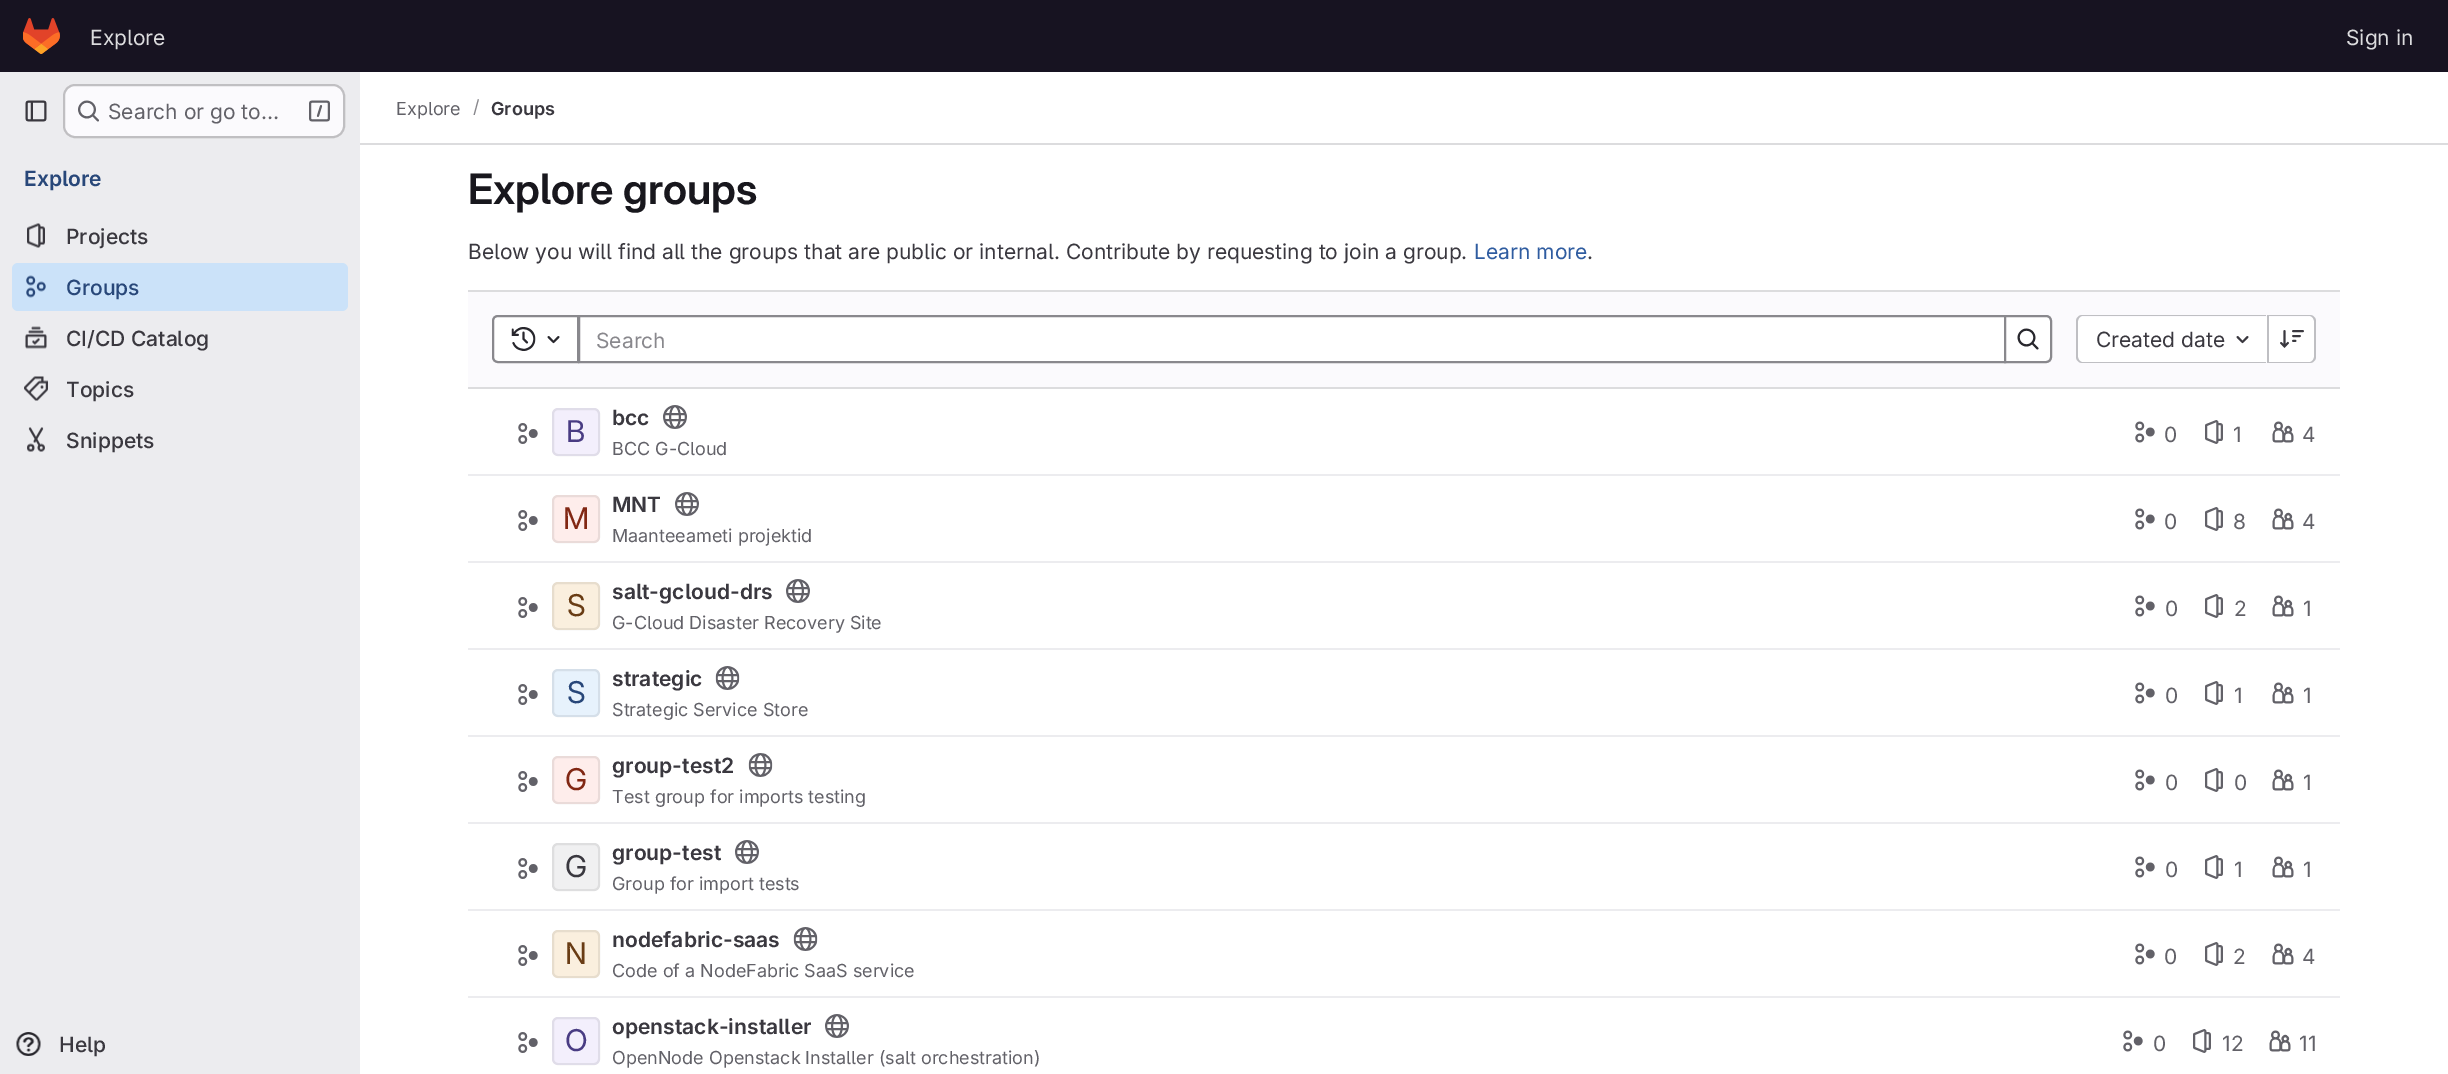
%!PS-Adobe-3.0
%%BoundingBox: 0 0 2448 1074
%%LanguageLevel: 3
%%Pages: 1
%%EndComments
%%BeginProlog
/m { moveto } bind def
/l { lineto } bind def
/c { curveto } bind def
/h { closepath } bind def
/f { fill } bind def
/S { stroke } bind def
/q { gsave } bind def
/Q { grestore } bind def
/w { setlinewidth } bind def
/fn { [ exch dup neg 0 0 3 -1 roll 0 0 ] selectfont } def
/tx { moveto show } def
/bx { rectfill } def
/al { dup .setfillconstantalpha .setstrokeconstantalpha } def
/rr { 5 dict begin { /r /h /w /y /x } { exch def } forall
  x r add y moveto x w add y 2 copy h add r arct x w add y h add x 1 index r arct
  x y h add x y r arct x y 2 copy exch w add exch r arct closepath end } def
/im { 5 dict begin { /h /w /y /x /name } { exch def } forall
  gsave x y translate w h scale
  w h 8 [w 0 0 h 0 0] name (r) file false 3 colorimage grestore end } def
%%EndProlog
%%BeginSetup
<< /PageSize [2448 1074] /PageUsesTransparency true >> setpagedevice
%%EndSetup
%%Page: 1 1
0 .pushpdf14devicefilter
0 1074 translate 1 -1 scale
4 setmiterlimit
1 setgray
0 0 2448 1074 bx
0.09 0.075 0.129 setrgbcolor
0 0 2448 72 bx
(image0.raw) 23 18 37 36 im
/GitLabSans-Regular 21 fn
0.863 0.863 0.871 setrgbcolor
(Explore) 90 45 tx
(Sign in) 2346 45 tx
0.925 0.925 0.937 setrgbcolor
0 72 360 1002 bx
(image1.raw) 25 100 22 22 im
0.984 0.98 0.992 setrgbcolor
63 84 282 54 12 rr f
0.24 al
0.02 0.02 0.024 setrgbcolor
2 w
64 85 280 52 11 rr S
1 al
(image2.raw) 78 100 21 22 im
0.384 0.38 0.408 setrgbcolor
(Search or go to…) 108 119 tx
(image3.raw) 309 100 21 22 im
/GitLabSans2-SemiBold 21 fn
0.157 0.278 0.475 setrgbcolor
(Explore) 24 186 tx
(image4.raw) 27 223 18 25 im
/GitLabSans-Medium 21 fn
0.227 0.22 0.247 setrgbcolor
(Projects) 66 244 tx
0.796 0.886 0.976 setrgbcolor
12 263 336 48 6 rr f
(image5.raw) 26 275 20 23 im
0.157 0.278 0.475 setrgbcolor
(Groups) 66 295 tx
(image6.raw) 25 326 22 23 im
0.227 0.22 0.247 setrgbcolor
(CI/CD Catalog) 66 346 tx
(image7.raw) 24 376 24 25 im
(Topics) 66 397 tx
(image8.raw) 27 427 18 25 im
(Snippets) 66 448 tx
(image9.raw) 16 1032 25 24 im
(Help) 59 1052 tx
0.863 0.863 0.871 setrgbcolor
360 143 2088 2 bx
/GitLabSans-Regular 18 fn
0.384 0.38 0.408 setrgbcolor
(Explore) 396 115 tx
0.537 0.533 0.553 setrgbcolor
(/) 473 113 tx
/GitLabSans2-SemiBold 18 fn
0.227 0.22 0.247 setrgbcolor
(Groups) 491 115 tx
/GitLabSans-SemiBold 42 fn
0.094 0.09 0.114 setrgbcolor
(Explore groups) 468 204 tx
/GitLabSans-Regular 21 fn
0.227 0.22 0.247 setrgbcolor
(Below you will find all the groups that are public or internal. Contribute by requesting to join a group.) 468 259 tx
0.184 0.361 0.627 setrgbcolor
(Learn more) 1474 259 tx
0.227 0.22 0.247 setrgbcolor
(.) 1587 259 tx
0.984 0.98 0.992 setrgbcolor
468 292 1872 95 bx
0.863 0.863 0.871 setrgbcolor
468 290 1872 2 bx
1 setgray
579 316 m 2005 316 l 2005 362 l 579 362 l h q f Q
0.537 0.533 0.553 setrgbcolor
S
1 setgray
498 316 m 578 316 l 578 362 l 498 362 l 495 362 493 360 493 357 c 493 321 l 493 318 495 316 498 316 c h q f Q
0.537 0.533 0.553 setrgbcolor
S
(image10.raw) 511 327 25 24 im
(image11.raw) 547 336 13 8 im
(Search) 596 348 tx
1 setgray
2005 316 m 2046 316 l 2049 316 2051 318 2051 321 c 2051 357 l 2051 360 2049 362 2046 362 c 2005 362 l h q f Q
0.537 0.533 0.553 setrgbcolor
S
(image12.raw) 2017 328 22 22 im
1 setgray
2083 317 m 2267 317 l 2267 362 l 2083 362 l 2080 362 2078 360 2078 357 c 2078 322 l 2078 319 2080 317 2083 317 c h f
0.749 0.749 0.765 setrgbcolor
2082 315 m 2266 315 l 2266 363 l 2082 363 l 2079 363 2076 360 2076 357 c 2076 321 l 2076 318 2079 315 2082 315 c h 2082 316 m 2266 316 l 2266 362 l 2082 362 l 2080 362 2078 359 2078 357 c 2078 321 l 2078 319 2080 316 2082 316 c h eofill
0.227 0.22 0.247 setrgbcolor
(Created date) 2096 347 tx
(image13.raw) 2236 336 13 8 im
1 setgray
2268 317 m 2310 317 l 2313 317 2315 319 2315 322 c 2315 357 l 2315 360 2313 362 2310 362 c 2268 362 l h f
0.749 0.749 0.765 setrgbcolor
2268 315 m 2310 315 l 2313 315 2316 318 2316 321 c 2316 357 l 2316 360 2313 363 2310 363 c 2268 363 l h 2268 316 m 2310 316 l 2312 316 2314 319 2314 321 c 2314 357 l 2314 359 2312 362 2310 362 c 2268 362 l h eofill
2267 315 2 48 bx
(image14.raw) 2280 330 24 18 im
0.863 0.863 0.871 setrgbcolor
468 387 1872 2 bx
0.925 0.925 0.937 setrgbcolor
468 474 1872 2 bx
(image15.raw) 518 423 20 21 im
0.953 0.937 0.988 setrgbcolor
552 408 48 48 6 rr f
0.08 al
0.02 0.02 0.024 setrgbcolor
553 409 46 46 5 rr S
/GitLabSans2-Regular 30 fn
1 al
0.286 0.235 0.514 setrgbcolor
(B) 566 442 tx
/GitLabSans2-SemiBold 21 fn
0.227 0.22 0.247 setrgbcolor
(bcc) 612 425 tx
(image16.raw) 663 405 24 24 im
/GitLabSans-Regular 18 fn
0.384 0.38 0.408 setrgbcolor
(BCC G-Cloud) 612 455 tx
(image17.raw) 2135 421 20 22 im
/GitLabSans-Regular 21 fn
(0) 2164 442 tx
(image18.raw) 2205 420 18 24 im
(1) 2233 442 tx
(image19.raw) 2272 421 22 22 im
(4) 2302 442 tx
0.925 0.925 0.937 setrgbcolor
468 561 1872 2 bx
(image15.raw) 518 510 20 21 im
0.996 0.929 0.922 setrgbcolor
552 495 48 48 6 rr f
0.08 al
0.02 0.02 0.024 setrgbcolor
553 496 46 46 5 rr S
/GitLabSans2-Regular 30 fn
1 al
0.506 0.153 0.075 setrgbcolor
(M) 563 529 tx
/GitLabSans2-SemiBold 21 fn
0.227 0.22 0.247 setrgbcolor
(MNT) 612 512 tx
(image20.raw) 675 492 24 24 im
/GitLabSans-Regular 18 fn
0.384 0.38 0.408 setrgbcolor
(Maanteeameti projektid) 612 542 tx
(image17.raw) 2135 508 20 22 im
/GitLabSans-Regular 21 fn
(0) 2164 529 tx
(image21.raw) 2205 507 18 24 im
(8) 2233 529 tx
(image19.raw) 2272 508 22 22 im
(4) 2302 529 tx
0.925 0.925 0.937 setrgbcolor
468 648 1872 2 bx
(image15.raw) 518 597 20 21 im
0.98 0.937 0.871 setrgbcolor
552 582 48 48 6 rr f
0.08 al
0.02 0.02 0.024 setrgbcolor
553 583 46 46 5 rr S
/GitLabSans2-Regular 30 fn
1 al
0.412 0.235 0.078 setrgbcolor
(S) 567 616 tx
/GitLabSans2-SemiBold 21 fn
0.227 0.22 0.247 setrgbcolor
(salt-gcloud-drs) 612 599 tx
(image22.raw) 786 579 24 24 im
/GitLabSans-Regular 18 fn
0.384 0.38 0.408 setrgbcolor
(G-Cloud Disaster Recovery Site) 612 629 tx
(image17.raw) 2135 595 20 22 im
/GitLabSans-Regular 21 fn
(0) 2165 616 tx
(image18.raw) 2205 594 18 24 im
(2) 2234 616 tx
(image19.raw) 2272 595 22 22 im
(1) 2303 616 tx
0.925 0.925 0.937 setrgbcolor
468 735 1872 2 bx
(image15.raw) 518 684 20 21 im
0.906 0.949 0.988 setrgbcolor
552 669 48 48 6 rr f
0.08 al
0.02 0.02 0.024 setrgbcolor
553 670 46 46 5 rr S
/GitLabSans2-Regular 30 fn
1 al
0.157 0.278 0.475 setrgbcolor
(S) 567 703 tx
/GitLabSans2-SemiBold 21 fn
0.227 0.22 0.247 setrgbcolor
(strategic) 612 686 tx
(image23.raw) 715 666 25 24 im
/GitLabSans-Regular 18 fn
0.384 0.38 0.408 setrgbcolor
(Strategic Service Store) 612 716 tx
(image17.raw) 2135 682 20 22 im
/GitLabSans-Regular 21 fn
(0) 2165 703 tx
(image18.raw) 2205 681 18 24 im
(1) 2234 703 tx
(image19.raw) 2272 682 22 22 im
(1) 2303 703 tx
0.925 0.925 0.937 setrgbcolor
468 822 1872 2 bx
(image15.raw) 518 771 20 21 im
0.996 0.929 0.922 setrgbcolor
552 756 48 48 6 rr f
0.08 al
0.02 0.02 0.024 setrgbcolor
553 757 46 46 5 rr S
/GitLabSans2-Regular 30 fn
1 al
0.506 0.153 0.075 setrgbcolor
(G) 565 790 tx
/GitLabSans2-SemiBold 21 fn
0.227 0.22 0.247 setrgbcolor
(group-test2) 612 773 tx
(image24.raw) 748 753 25 24 im
/GitLabSans-Regular 18 fn
0.384 0.38 0.408 setrgbcolor
(Test group for imports testing) 612 803 tx
(image17.raw) 2135 769 20 22 im
/GitLabSans-Regular 21 fn
(0) 2165 790 tx
(image18.raw) 2205 768 18 24 im
(0) 2234 790 tx
(image19.raw) 2272 769 22 22 im
(1) 2303 790 tx
0.925 0.925 0.937 setrgbcolor
468 909 1872 2 bx
(image15.raw) 518 858 20 21 im
0.941 0.941 0.945 setrgbcolor
552 843 48 48 6 rr f
0.08 al
0.02 0.02 0.024 setrgbcolor
553 844 46 46 5 rr S
/GitLabSans2-Regular 30 fn
1 al
0.227 0.22 0.247 setrgbcolor
(G) 565 877 tx
/GitLabSans2-SemiBold 21 fn
(group-test) 612 860 tx
(image22.raw) 735 840 24 24 im
/GitLabSans-Regular 18 fn
0.384 0.38 0.408 setrgbcolor
(Group for import tests) 612 890 tx
(image17.raw) 2135 856 20 22 im
/GitLabSans-Regular 21 fn
(0) 2165 877 tx
(image18.raw) 2205 855 18 24 im
(1) 2234 877 tx
(image19.raw) 2272 856 22 22 im
(1) 2303 877 tx
0.925 0.925 0.937 setrgbcolor
468 996 1872 2 bx
(image15.raw) 518 945 20 21 im
0.98 0.937 0.871 setrgbcolor
552 930 48 48 6 rr f
0.08 al
0.02 0.02 0.024 setrgbcolor
553 931 46 46 5 rr S
/GitLabSans2-Regular 30 fn
1 al
0.412 0.235 0.078 setrgbcolor
(N) 565 964 tx
/GitLabSans2-SemiBold 21 fn
0.227 0.22 0.247 setrgbcolor
(nodefabric-saas) 612 947 tx
(image25.raw) 793 927 25 24 im
/GitLabSans-Regular 18 fn
0.384 0.38 0.408 setrgbcolor
(Code of a NodeFabric SaaS service) 612 977 tx
(image17.raw) 2135 943 20 22 im
/GitLabSans-Regular 21 fn
(0) 2164 964 tx
(image18.raw) 2205 942 18 24 im
(2) 2233 964 tx
(image19.raw) 2272 943 22 22 im
(4) 2302 964 tx
(image15.raw) 518 1032 20 21 im
0.953 0.937 0.988 setrgbcolor
552 1017 48 48 6 rr f
0.08 al
0.02 0.02 0.024 setrgbcolor
553 1018 46 46 5 rr S
/GitLabSans2-Regular 30 fn
1 al
0.286 0.235 0.514 setrgbcolor
(O) 565 1051 tx
/GitLabSans2-SemiBold 21 fn
0.227 0.22 0.247 setrgbcolor
(openstack-installer) 612 1034 tx
(image26.raw) 825 1014 24 24 im
/GitLabSans-Regular 18 fn
0.384 0.38 0.408 setrgbcolor
(OpenNode Openstack Installer \(salt orchestration\)) 612 1064 tx
(image27.raw) 2123 1030 20 22 im
/GitLabSans-Regular 21 fn
(0) 2153 1051 tx
(image18.raw) 2193 1029 18 24 im
(12) 2222 1051 tx
(image28.raw) 2269 1030 22 22 im
(11) 2299 1051 tx
.poppdf14devicefilter showpage
%%EOF
